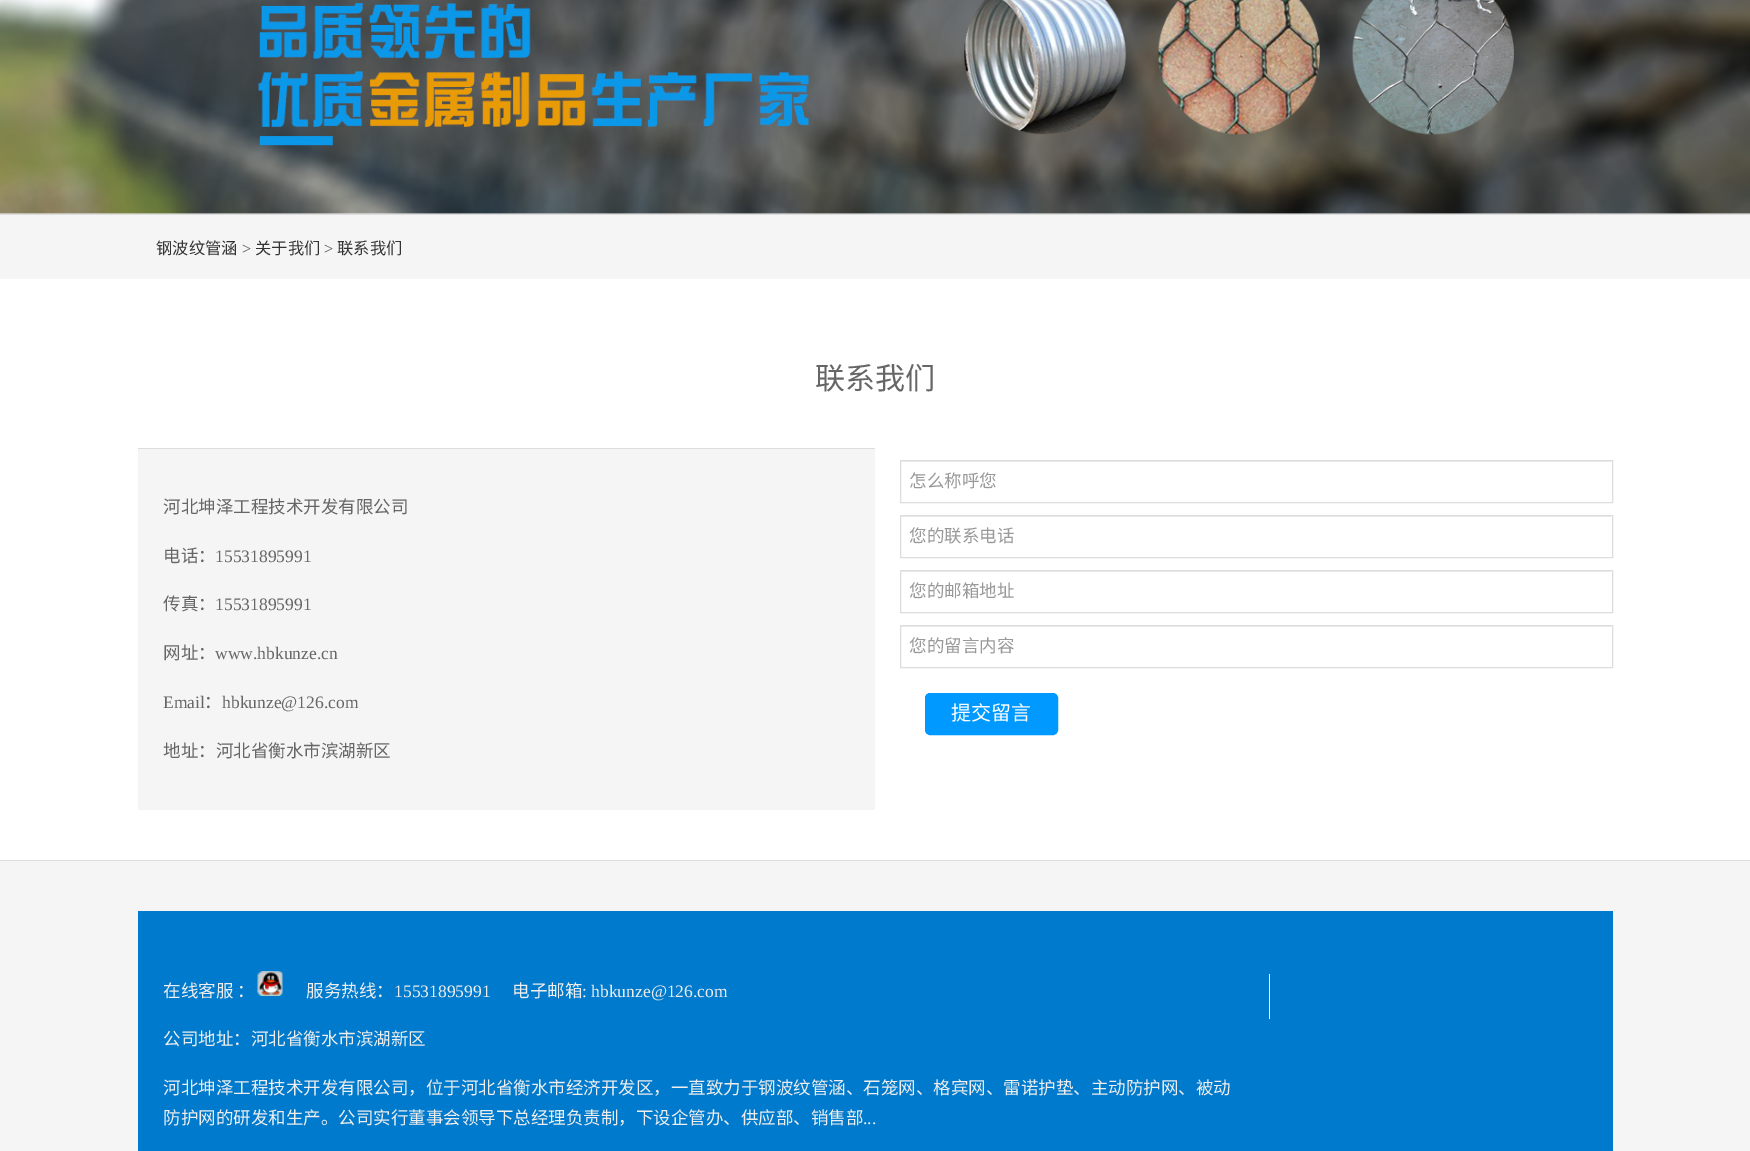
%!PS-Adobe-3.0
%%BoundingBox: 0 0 1750 1151
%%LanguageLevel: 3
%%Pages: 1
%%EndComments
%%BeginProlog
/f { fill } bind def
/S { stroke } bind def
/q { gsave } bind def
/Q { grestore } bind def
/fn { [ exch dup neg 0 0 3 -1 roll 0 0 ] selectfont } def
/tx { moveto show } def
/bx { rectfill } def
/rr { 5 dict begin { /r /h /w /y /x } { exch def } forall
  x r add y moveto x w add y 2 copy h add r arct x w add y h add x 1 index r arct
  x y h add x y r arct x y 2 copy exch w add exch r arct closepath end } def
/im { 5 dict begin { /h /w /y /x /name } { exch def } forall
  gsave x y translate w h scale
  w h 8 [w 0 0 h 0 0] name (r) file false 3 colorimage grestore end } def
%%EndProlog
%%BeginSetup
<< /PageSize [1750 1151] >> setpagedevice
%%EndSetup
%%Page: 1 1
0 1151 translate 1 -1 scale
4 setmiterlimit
1 setgray
0 0 1750 1151 bx
(image0.raw) 0 0 1750 214 im
0.961 setgray
0 215 1750 64 bx
0.867 setgray
0 214 1750 1 bx
/NotoSansCJKSC-Regular 16.25 fn
0.2 setgray
(钢波纹管涵) 156 254 tx
/LiberationSerif-Regular 16.25 fn
0.333 setgray
(>) 242 254 tx
/NotoSansCJKSC-Regular 16.25 fn
0.2 setgray
(关于我们) 255 254 tx
/LiberationSerif-Regular 16.25 fn
0.333 setgray
(>) 324 254 tx
/NotoSansCJKSC-Regular 16.25 fn
0.2 setgray
(联系我们) 337 254 tx
/NotoSansCJKSC-Regular 30 fn
0.4 setgray
(联系我们) 815 389 tx
0.961 setgray
138 449 737 361 bx
0.867 setgray
138 448 737 1 bx
/NotoSansCJKSC-Regular 17.5 fn
0.4 setgray
(河北坤泽工程技术开发有限公司) 163 513 tx
(电话：) 163 562 tx
/LiberationSerif-Regular 17.5 fn
(15531895991) 215 562 tx
/NotoSansCJKSC-Regular 17.5 fn
(传真：) 163 610 tx
/LiberationSerif-Regular 17.5 fn
(15531895991) 215 610 tx
/NotoSansCJKSC-Regular 17.5 fn
(网址：) 163 659 tx
/LiberationSerif-Regular 17.5 fn
(www.hbkunze.cn) 215 659 tx
(Email) 163 708 tx
/NotoSansCJKSC-Regular 17.5 fn
(：) 204 708 tx
/LiberationSerif-Regular 17.5 fn
(hbkunze@126.com) 222 708 tx
/NotoSansCJKSC-Regular 17.5 fn
(地址：河北省衡水市滨湖新区) 163 757 tx
0.925 setgray
901 461 710 1 bx
0.867 setgray
900.5 460.5 712 42 rectstroke
0.6 setgray
(怎么称呼您) 909 487 tx
0.925 setgray
901 516 710 1 bx
0.867 setgray
900.5 515.5 712 42 rectstroke
0.6 setgray
(您的联系电话) 909 542 tx
0.925 setgray
901 571 710 1 bx
0.867 setgray
900.5 570.5 712 42 rectstroke
0.6 setgray
(您的邮箱地址) 909 597 tx
0.925 setgray
901 626 710 1 bx
0.867 setgray
900.5 625.5 712 42 rectstroke
0.6 setgray
(您的留言内容) 909 652 tx
0 0.6 1 setrgbcolor
925.5 693.5 132 41 4.5 rr q f Q
S
/NotoSansCJKSC-Regular 20 fn
1 setgray
(提交留言) 951 720 tx
0.961 setgray
0 861 1750 290 bx
0.867 setgray
0 860 1750 1 bx
0 0.478 0.8 setrgbcolor
138 911 1475 240 bx
/NotoSansCJKSC-Regular 17.5 fn
0.933 setgray
(在线客服) 163 997 tx
(：) 237 997 tx
(image1.raw) 257 971 26 25 im
(服务热线：) 306 997 tx
/LiberationSerif-Regular 17.5 fn
(15531895991) 394 997 tx
/NotoSansCJKSC-Regular 17.5 fn
(电子邮箱) 512 997 tx
/LiberationSerif-Regular 17.5 fn
(: hbkunze@126.com) 582 997 tx
/NotoSansCJKSC-Regular 17.5 fn
(公司地址：河北省衡水市滨湖新区) 163 1045 tx
(河北坤泽工程技术开发有限公司，位于河北省衡水市经济开发区，一直致力于钢波纹管涵、石笼网、格宾网、雷诺护垫、主动防护网、被动) 163 1094 tx
(防护网的研发和生产。公司实行董事会领导下总经理负责制，下设企管办、供应部、销售部) 163 1124 tx
/LiberationSerif-Regular 17.5 fn
(...) 863 1124 tx
1 setgray
1269 974 1 45 bx
showpage
%%EOF
